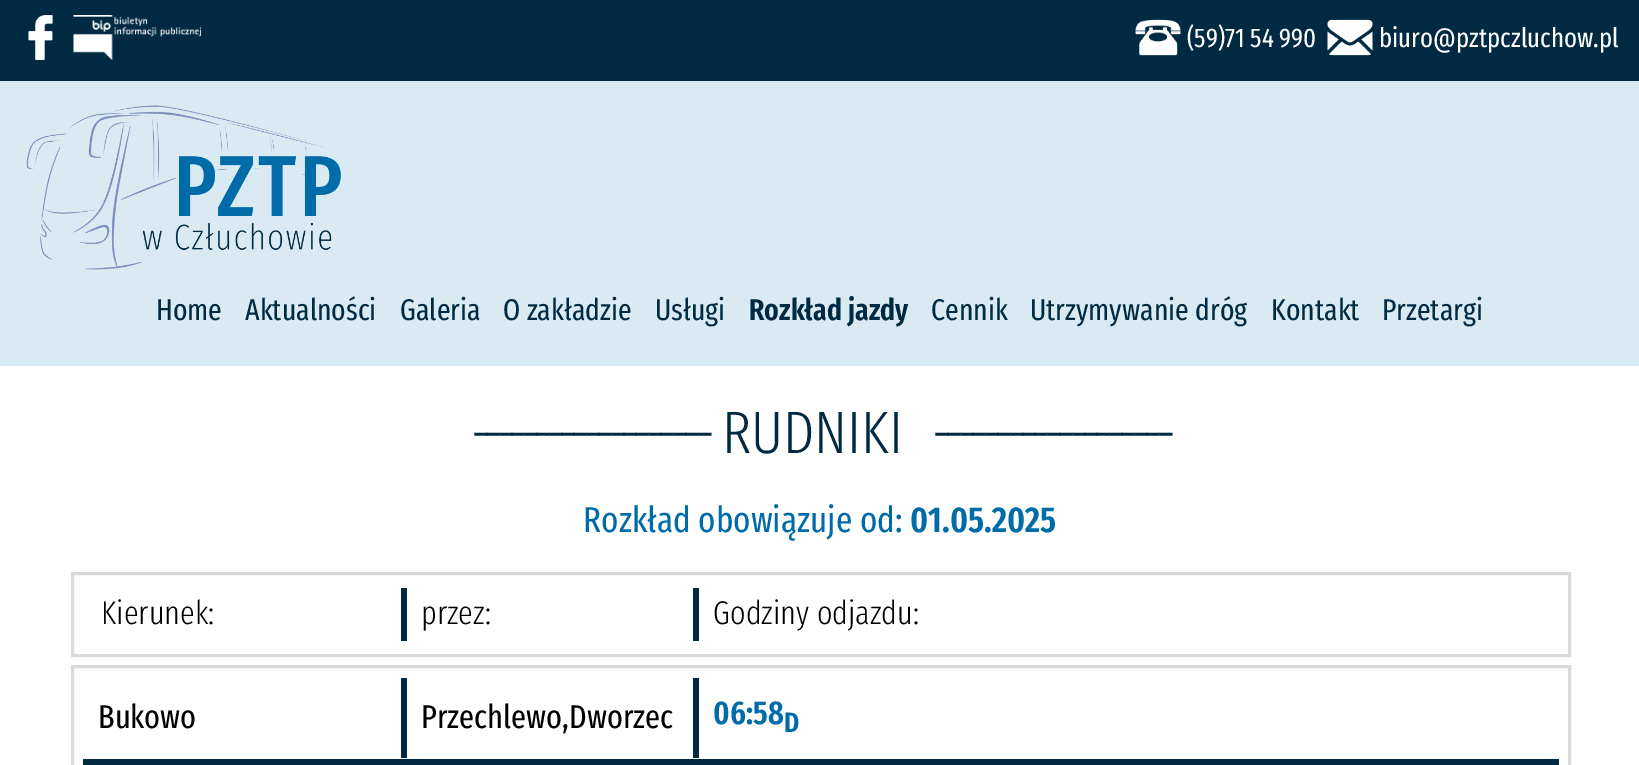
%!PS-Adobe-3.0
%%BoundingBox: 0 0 1639 765
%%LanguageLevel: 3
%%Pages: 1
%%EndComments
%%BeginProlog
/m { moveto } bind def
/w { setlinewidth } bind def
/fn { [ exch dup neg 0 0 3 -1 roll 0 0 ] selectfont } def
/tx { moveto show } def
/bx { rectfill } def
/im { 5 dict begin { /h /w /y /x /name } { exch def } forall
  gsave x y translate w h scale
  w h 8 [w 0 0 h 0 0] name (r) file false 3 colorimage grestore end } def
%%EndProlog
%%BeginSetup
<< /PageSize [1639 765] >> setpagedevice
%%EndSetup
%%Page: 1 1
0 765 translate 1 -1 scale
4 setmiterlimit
1 setgray
0 0 1639 765 bx
0 0.165 0.259 setrgbcolor
0 0 1639 81 bx
(image0.raw) 28 15 25 45 im
(image1.raw) 73 15 128 45 im
(image2.raw) 1135 19 46 37 im
/FiraSansExtraCondensed-Regular 27 fn
1 setgray
(\(59\)71 54 990) 1187 47 tx
(image3.raw) 1327 19 46 37 im
(biuro@pztpczluchow.pl) 1379 47 tx
0.851 0.918 0.953 setrgbcolor
0 81 1639 285 bx
(image4.raw) 26 105 315 165 im
/FiraSansExtraCondensed-Regular 30 fn
0 0.165 0.259 setrgbcolor
(Home) 156 320 tx
(Aktualności) 245 320 tx
(Galeria) 400 320 tx
(O zakładzie) 503 320 tx
(Usługi) 655 320 tx
/FiraSansExtraCondensed-SemiBold 30 fn
(Rozkład jazdy) 749 320 tx
/FiraSansExtraCondensed-Regular 30 fn
(Cennik) 931 320 tx
(Utrzymywanie dróg) 1030 320 tx
(Kontakt) 1271 320 tx
(Przetargi) 1382 320 tx
/FiraSansExtraCondensed-Light 60 fn
471 453 m -7.5 0 (-------------------) ashow
(RUDNIKI) 722 453 tx
932 453 m -7.5 0 (-------------------) ashow
/FiraSansExtraCondensed-Regular 36 fn
0 0.42 0.663 setrgbcolor
(Rozkład obowiązuje od:) 583 532 tx
/FiraSansExtraCondensed-SemiBold 36 fn
(01.05.2025) 910 532 tx
0.855 setgray
3 w
72.5 573.5 1497 82 rectstroke
/FiraSansExtraCondensed-Light 33 fn
0 setgray
(Kierunek:) 101 624 tx
0 0.165 0.259 setrgbcolor
401 588 6 53 bx
0 setgray
(przez:) 421 624 tx
0 0.165 0.259 setrgbcolor
693 588 6 53 bx
0 setgray
(Godziny odjazdu:) 713 624 tx
0.855 setgray
72.5 666.5 1497 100 rectstroke
0 0.165 0.259 setrgbcolor
83 759 1476 6 bx
/FiraSansExtraCondensed-Regular 33 fn
0 setgray
(Bukowo) 98 728 tx
0 0.165 0.259 setrgbcolor
401 678 6 80 bx
0 setgray
(Przechlewo,Dworzec) 421 728 tx
0 0.165 0.259 setrgbcolor
693 678 6 80 bx
/FiraSansExtraCondensed-SemiBold 33 fn
0 0.42 0.663 setrgbcolor
(06:58) 713 724 tx
/FiraSansExtraCondensed-SemiBold 28 fn
(D) 784 732 tx
showpage
%%EOF
